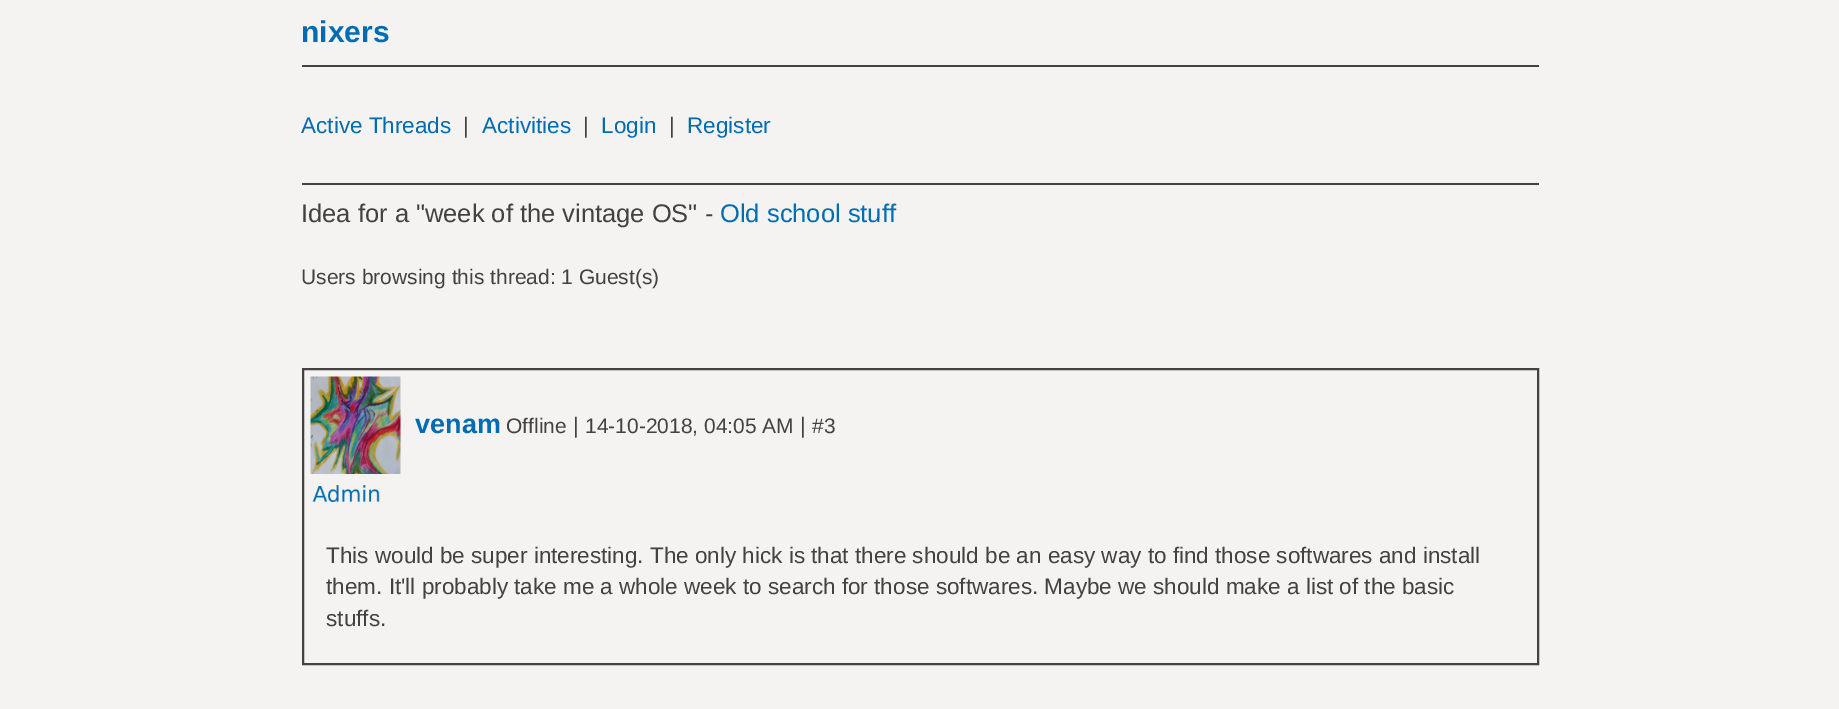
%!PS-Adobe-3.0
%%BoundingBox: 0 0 1839 709
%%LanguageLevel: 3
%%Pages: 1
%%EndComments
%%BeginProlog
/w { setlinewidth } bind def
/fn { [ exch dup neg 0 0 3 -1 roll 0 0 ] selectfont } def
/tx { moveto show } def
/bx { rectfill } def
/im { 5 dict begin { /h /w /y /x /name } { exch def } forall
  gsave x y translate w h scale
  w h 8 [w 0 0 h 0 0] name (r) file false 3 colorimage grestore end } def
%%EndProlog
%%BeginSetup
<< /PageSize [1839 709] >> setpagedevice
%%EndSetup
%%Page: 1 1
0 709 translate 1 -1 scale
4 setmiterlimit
0.957 0.953 0.949 setrgbcolor
0 0 1839 709 bx
/LiberationSans-Bold 30 fn
0.008 0.424 0.694 setrgbcolor
(nixers) 301 42 tx
0.259 setgray
302 65 1237 2 bx
/LiberationSans-Regular 22.5 fn
0.008 0.424 0.694 setrgbcolor
(Active Threads) 301 133 tx
0.259 setgray
(|) 463 133 tx
0.008 0.424 0.694 setrgbcolor
(Activities) 482 133 tx
0.259 setgray
(|) 583 133 tx
0.008 0.424 0.694 setrgbcolor
(Login) 601 133 tx
0.259 setgray
(|) 669 133 tx
0.008 0.424 0.694 setrgbcolor
(Register) 687 133 tx
0.259 setgray
302 183 1237 2 bx
/LiberationSans-Regular 25.5 fn
(Idea for a "week of the vintage OS" -) 301 222 tx
0.008 0.424 0.694 setrgbcolor
(Old school stuff) 720 222 tx
/LiberationSans-Regular 21 fn
0.259 setgray
(Users browsing this thread: 1 Guest\(s\)) 301 284 tx
2 w
303 369 1235 295 rectstroke
(image0.raw) 310 376 91 98 im
/LiberationSans-Bold 27 fn
0.008 0.424 0.694 setrgbcolor
(venam) 415 433 tx
/LiberationSans-Regular 21 fn
0.259 setgray
(Offline) 506 433 tx
/LiberationSans-Regular 22.5 fn
(|) 573 433 tx
/LiberationSans-Regular 21 fn
(14-10-2018, 04:05 AM) 585 433 tx
/LiberationSans-Regular 22.5 fn
(|) 800 433 tx
/LiberationSans-Regular 21 fn
(#3) 812 433 tx
(image1.raw) 312 485 68 17 im
/LiberationSans-Regular 22.5 fn
(This would be super interesting. The only hick is that there should be an easy way to find those softwares and install) 326 563 tx
(them. It'll probably take me a whole week to search for those softwares. Maybe we should make a list of the basic) 326 594 tx
(stuffs.) 326 626 tx
showpage
%%EOF
